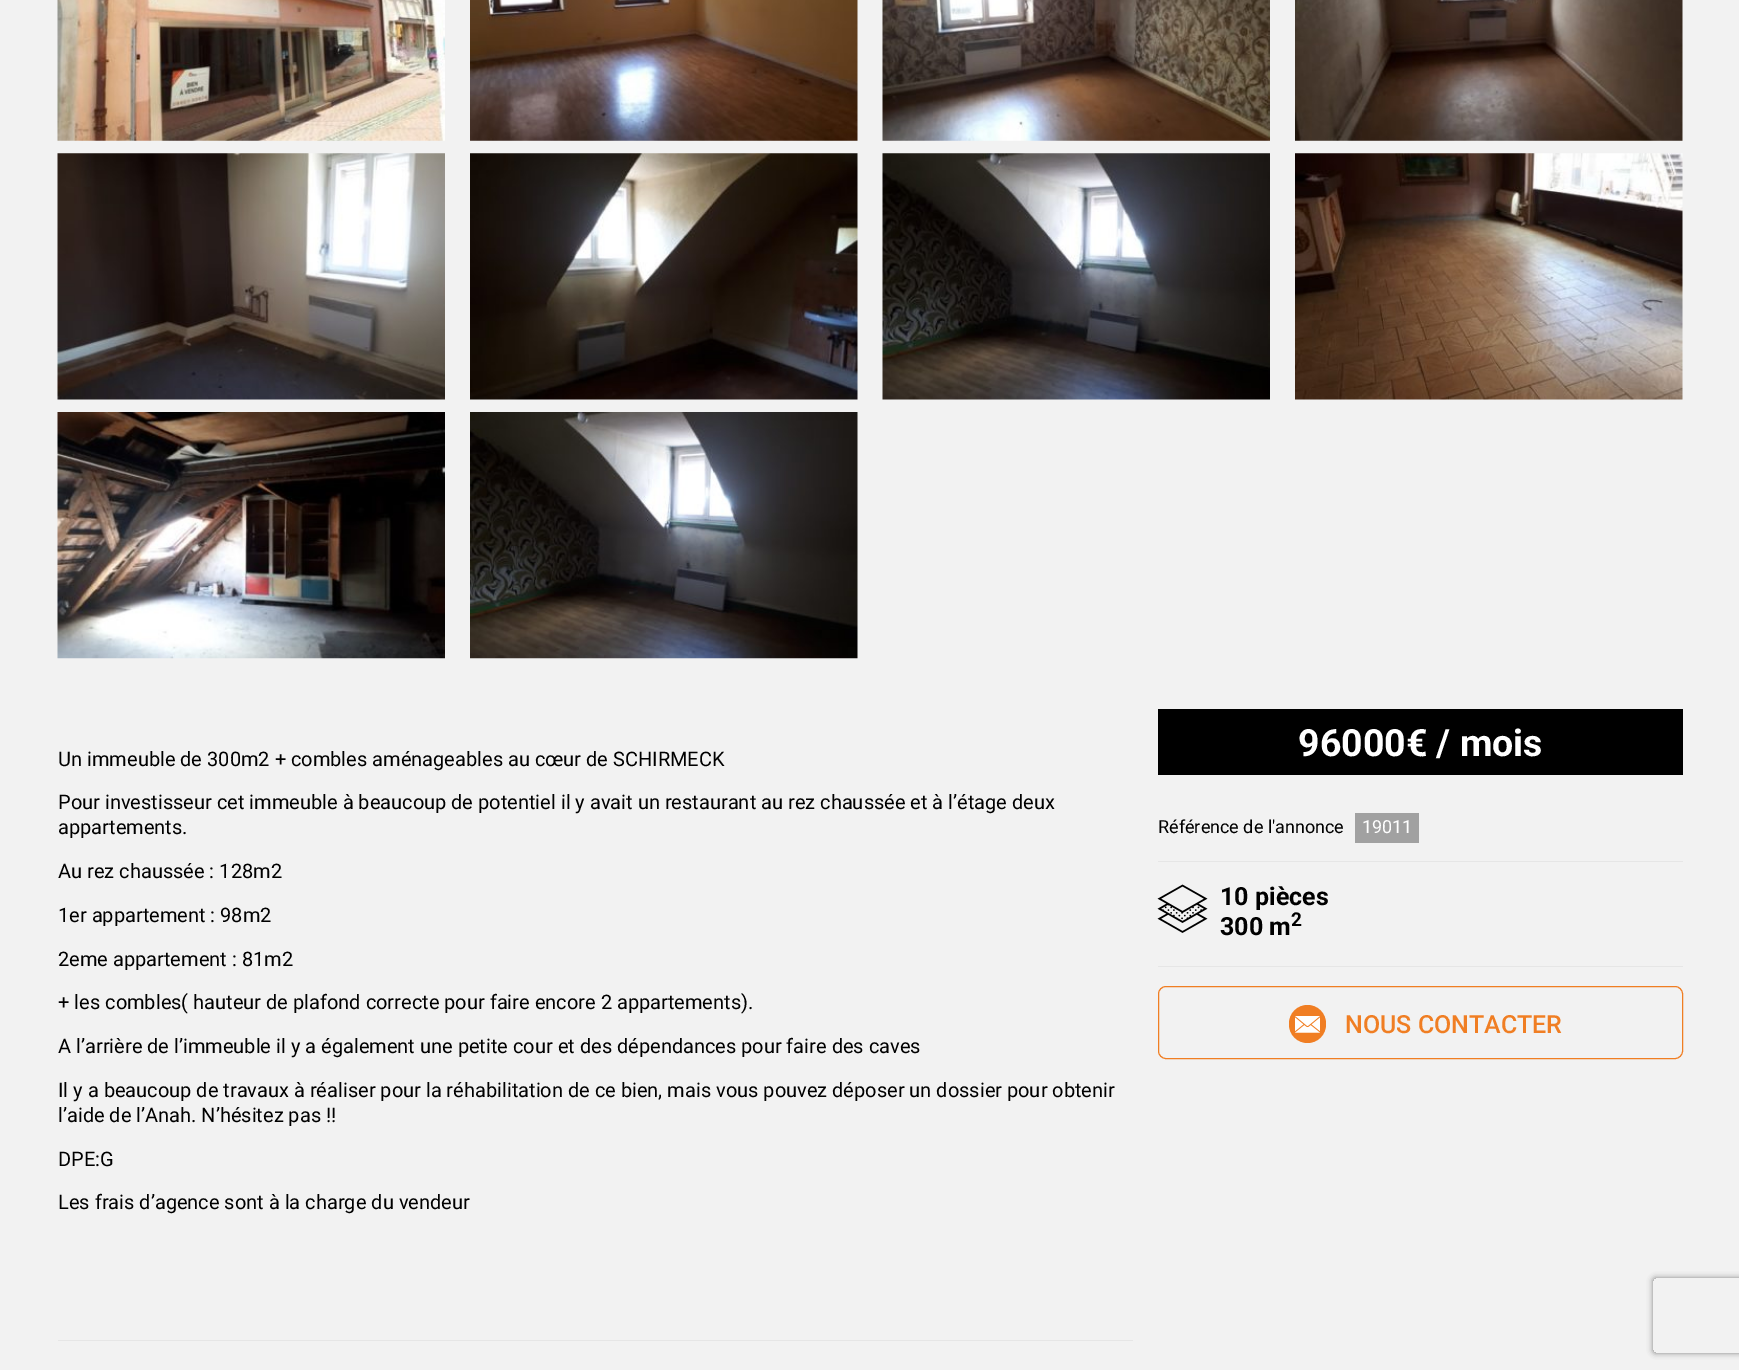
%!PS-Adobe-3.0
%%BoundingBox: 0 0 1739 1370
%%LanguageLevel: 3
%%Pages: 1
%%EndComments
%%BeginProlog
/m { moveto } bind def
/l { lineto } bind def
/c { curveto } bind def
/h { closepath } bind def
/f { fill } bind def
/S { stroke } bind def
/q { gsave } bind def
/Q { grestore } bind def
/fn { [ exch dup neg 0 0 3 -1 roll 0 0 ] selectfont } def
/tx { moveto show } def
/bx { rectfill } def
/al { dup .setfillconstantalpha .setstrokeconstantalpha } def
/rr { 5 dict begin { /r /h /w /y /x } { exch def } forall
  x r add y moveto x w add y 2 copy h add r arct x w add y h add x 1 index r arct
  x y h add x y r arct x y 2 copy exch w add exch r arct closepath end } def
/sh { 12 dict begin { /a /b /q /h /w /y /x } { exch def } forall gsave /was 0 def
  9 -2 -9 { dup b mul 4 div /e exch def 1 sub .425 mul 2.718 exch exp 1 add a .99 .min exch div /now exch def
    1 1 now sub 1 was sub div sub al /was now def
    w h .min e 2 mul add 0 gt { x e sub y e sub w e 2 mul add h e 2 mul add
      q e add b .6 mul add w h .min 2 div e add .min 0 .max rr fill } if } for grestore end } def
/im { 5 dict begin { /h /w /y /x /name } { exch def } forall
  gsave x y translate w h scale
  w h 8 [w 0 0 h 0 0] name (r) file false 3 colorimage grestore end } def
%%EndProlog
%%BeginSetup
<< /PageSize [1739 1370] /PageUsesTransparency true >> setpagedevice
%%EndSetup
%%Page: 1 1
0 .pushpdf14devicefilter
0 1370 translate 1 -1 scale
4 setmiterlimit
0.949 setgray
0 0 1739 1370 bx
(image0.raw) 57 0 388 141 im
(image1.raw) 470 0 388 141 im
(image2.raw) 882 0 388 141 im
(image3.raw) 1295 0 388 141 im
(image4.raw) 57 153 388 247 im
(image5.raw) 470 153 388 247 im
(image6.raw) 882 153 388 247 im
(image7.raw) 1295 153 388 247 im
(image8.raw) 57 412 388 247 im
(image9.raw) 470 412 388 247 im
/Roboto-Regular 20 fn
0 setgray
(Un immeuble de 300m2 + combles aménageables au cœur de SCHIRMECK) 58 766 tx
(Pour investisseur cet immeuble à beaucoup de potentiel il y avait un restaurant au rez chaussée et à l’étage deux) 58 809 tx
(appartements.) 58 834 tx
(Au rez chaussée : 128m2) 58 878 tx
(1er appartement : 98m2) 58 922 tx
(2eme appartement : 81m2) 58 966 tx
(+ les combles\( hauteur de plafond correcte pour faire encore 2 appartements\).) 58 1009 tx
(A l’arrière de l’immeuble il y a également une petite cour et des dépendances pour faire des caves) 58 1053 tx
(Il y a beaucoup de travaux à réaliser pour la réhabilitation de ce bien, mais vous pouvez déposer un dossier pour obtenir) 58 1097 tx
(l’aide de l’Anah. N’hésitez pas !!) 58 1122 tx
(DPE:G) 58 1166 tx
(Les frais d’agence sont à la charge du vendeur) 58 1209 tx
0.902 setgray
58 1340 1075 1 bx
0 setgray
1158 709 525 66 bx
/Roboto-Bold 37.5 fn
1 setgray
(96000€ / mois) 1298 756 tx
/Roboto-Regular 18 fn
0 setgray
(Référence de l'annonce) 1158 833 tx
0.631 setgray
1355 813 64 30 bx
1 setgray
(19011) 1362 833 tx
0.902 setgray
1158 861 525 1 bx
(image10.raw) 1157 884 51 49 im
/Roboto-Bold 25 fn
0 setgray
(10 pièces) 1220 905 tx
(300 m) 1220 935 tx
/Roboto-Bold 19 fn
(2) 1291 926 tx
0.902 setgray
1158 966 525 1 bx
0.941 0.494 0.137 setrgbcolor
1158.5 986.5 524 72 7.5 rr S
1289 1005 37 38 18.5 rr f
(image11.raw) 1295 1016 25 17 im
/Roboto-Medium 25 fn
(NOUS CONTACTER) 1345 1033 tx
q
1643 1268 m 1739 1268 l 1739 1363 l 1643 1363 l h 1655.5 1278 m 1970.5 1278 l 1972 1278 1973 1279 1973 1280.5 c 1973 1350.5 l 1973 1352 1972 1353 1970.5 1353 c 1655.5 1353 l 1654 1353 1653 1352 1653 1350.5 c 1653 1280.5 l 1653 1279 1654 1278 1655.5 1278 c h eoclip newpath
0.502 setgray
1653 1278 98 75 2.5 3 1 sh
Q
.poppdf14devicefilter showpage
%%EOF
